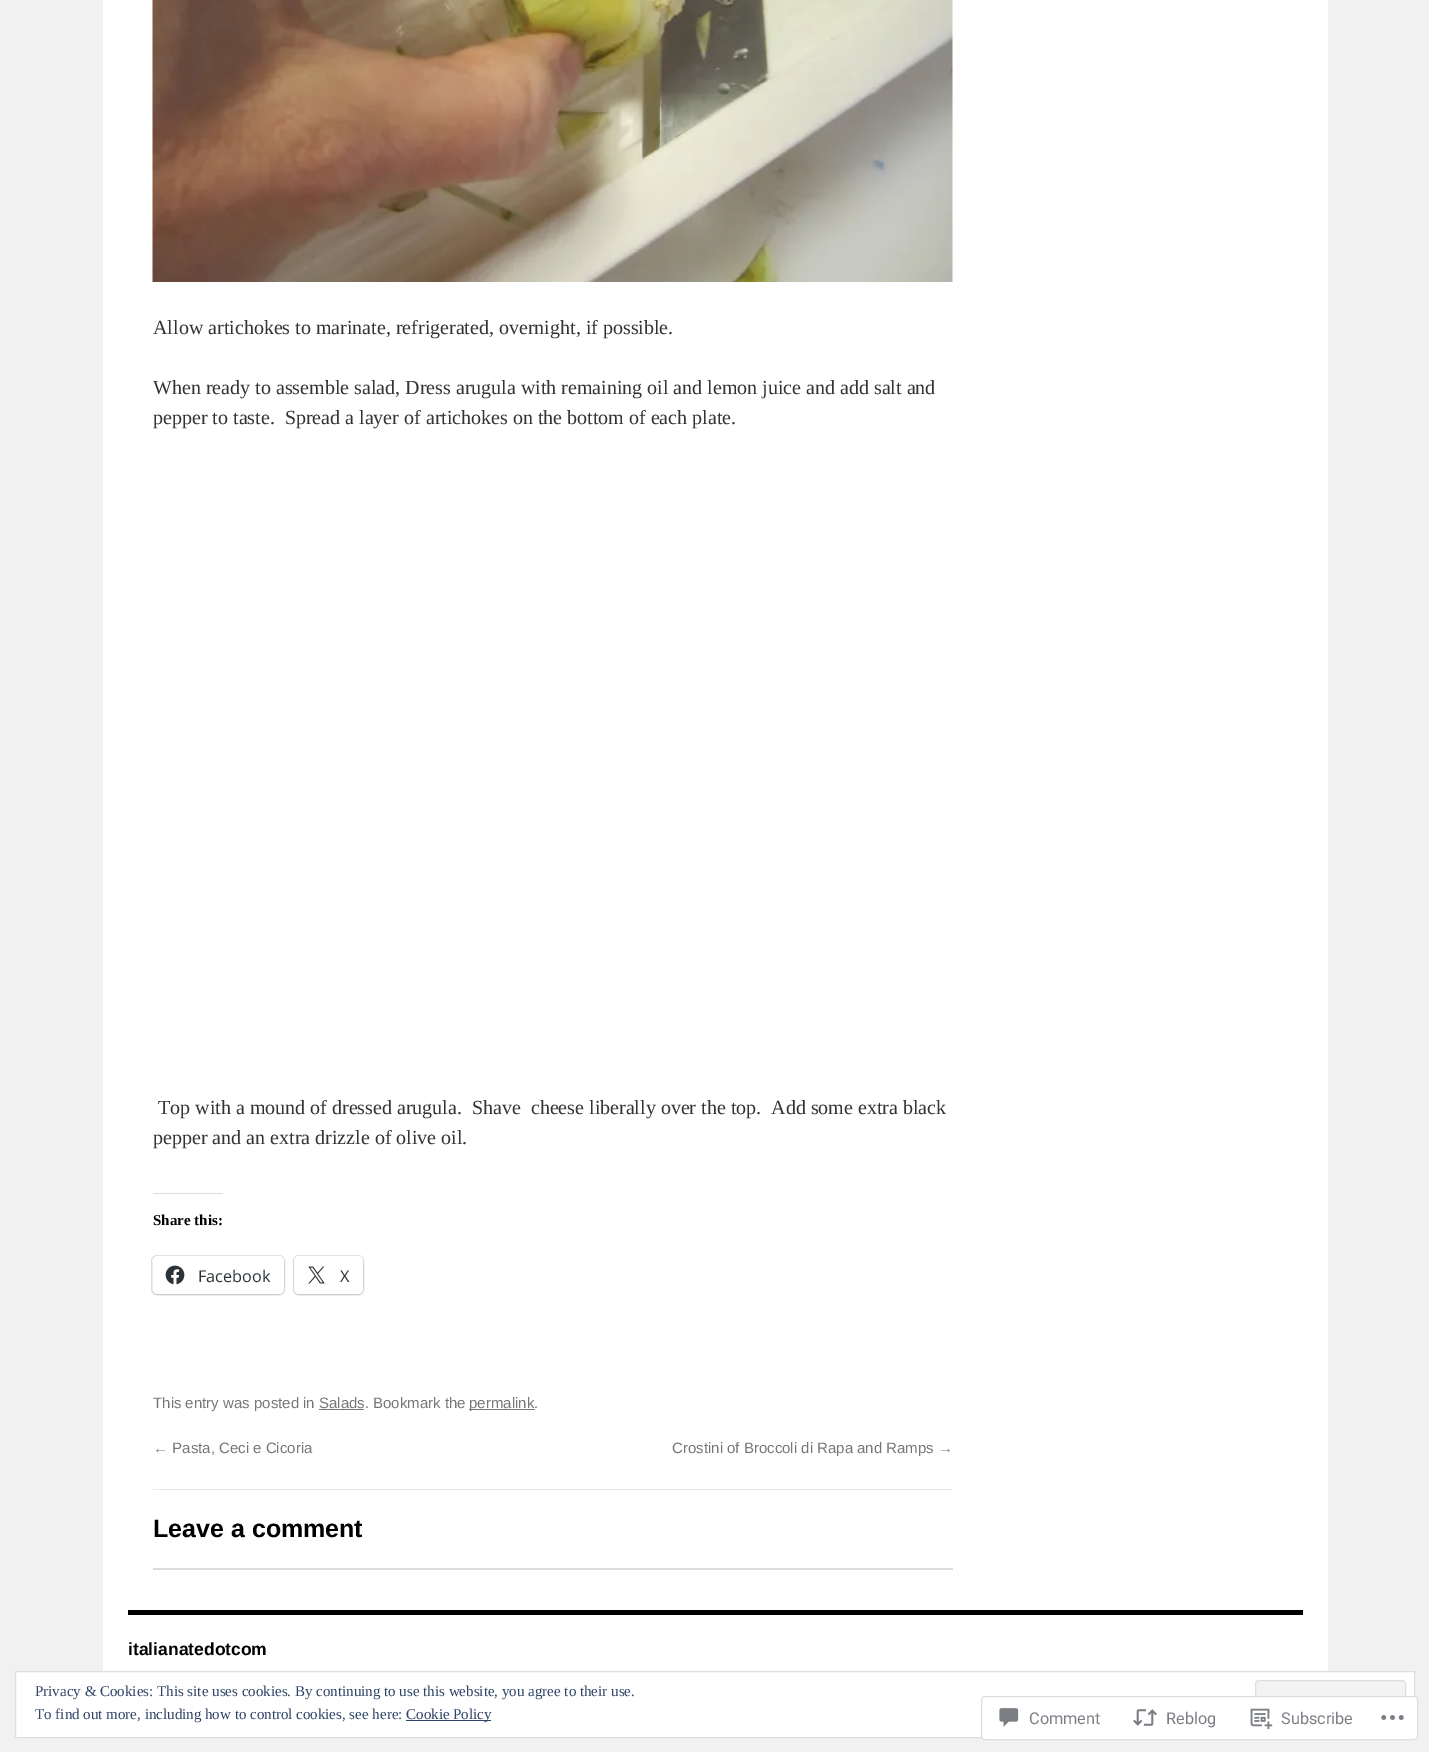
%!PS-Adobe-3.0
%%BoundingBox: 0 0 1429 1752
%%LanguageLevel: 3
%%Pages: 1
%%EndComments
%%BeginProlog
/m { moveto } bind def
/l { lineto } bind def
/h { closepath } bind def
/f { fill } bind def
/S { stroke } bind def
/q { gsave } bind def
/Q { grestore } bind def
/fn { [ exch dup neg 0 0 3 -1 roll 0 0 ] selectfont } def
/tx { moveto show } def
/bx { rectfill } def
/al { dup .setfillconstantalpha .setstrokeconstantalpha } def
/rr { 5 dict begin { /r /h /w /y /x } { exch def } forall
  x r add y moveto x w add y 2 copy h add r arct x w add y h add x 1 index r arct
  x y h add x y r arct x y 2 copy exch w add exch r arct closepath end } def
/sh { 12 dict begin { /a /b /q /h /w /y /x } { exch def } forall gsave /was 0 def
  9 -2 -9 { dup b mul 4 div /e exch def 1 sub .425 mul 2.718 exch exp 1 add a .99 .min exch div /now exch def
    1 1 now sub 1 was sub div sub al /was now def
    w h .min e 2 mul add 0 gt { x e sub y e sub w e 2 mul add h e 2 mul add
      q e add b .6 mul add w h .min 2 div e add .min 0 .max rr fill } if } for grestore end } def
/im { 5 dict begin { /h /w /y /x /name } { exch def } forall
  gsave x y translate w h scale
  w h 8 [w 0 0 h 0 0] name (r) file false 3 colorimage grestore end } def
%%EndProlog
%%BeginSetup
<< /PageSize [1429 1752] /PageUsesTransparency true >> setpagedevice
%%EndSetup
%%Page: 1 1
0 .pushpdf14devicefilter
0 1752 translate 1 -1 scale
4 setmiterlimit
0.945 setgray
0 0 1429 1752 bx
1 setgray
103 0 1225 1671 bx
(image0.raw) 152 0 801 282 im
/LiberationSerif-Regular 20 fn
0.2 setgray
(Allow artichokes to marinate, refrigerated, overnight, if possible.) 153 334 tx
(When ready to assemble salad, Dress arugula with remaining oil and lemon juice and add salt and) 153 394 tx
(pepper to taste.  Spread a layer of artichokes on the bottom of each plate.) 153 424 tx
(Top with a mound of dressed arugula.  Shave  cheese liberally over the top.  Add some extra black) 158 1114 tx
(pepper and an extra drizzle of olive oil.) 153 1144 tx
0.863 0.863 0.871 setrgbcolor
153 1193 70 1 bx
/LiberationSerif-Bold 15 fn
0 setgray
(Share this:) 153 1225 tx
0.878 setgray
151.5 1255.5 133 39 5.5 rr S
0 setgray
153 1258 131 37 5 1 0.12 sh
1 setgray
153 1256 131 38 5 rr f
(image1.raw) 165 1265 20 20 im
/OpenSans-Regular 16.25 fn
0.173 0.2 0.22 setrgbcolor
(Facebook) 198 1282 tx
0.878 setgray
293.5 1255.5 70 39 5.5 rr S
0 setgray
294 1258 69 37 5 1 0.12 sh
1 setgray
294 1256 69 38 5 rr f
(image2.raw) 308 1266 17 18 im
0.173 0.2 0.22 setrgbcolor
(X) 340 1282 tx
/LiberationSans-Regular 15 fn
0.467 setgray
(This entry was posted in Salads. Bookmark the) 153 1408 tx
469 1409 66 1 bx
(permalink.) 469 1408 tx
319 1409 45 1 bx
(← Pasta, Ceci e Cicoria) 153 1453 tx
(Crostini of Broccoli di Rapa and Ramps →) 672 1453 tx
0.906 setgray
153 1489 800 1 bx
/LiberationSans-Bold 25 fn
0 setgray
(Leave a comment) 153 1537 tx
0.863 0.863 0.871 setrgbcolor
153 1568 800 2 bx
0 setgray
128 1610 1175 5 bx
/LiberationSans-Bold 17.5 fn
(italianatedotcom) 128 1655 tx
1 setgray
15.5 1671.5 m 1414.5 1671.5 l 1414.5 1737.5 l 15.5 1737.5 l h q f Q
0.871 setgray
S
/LiberationSerif-Regular 15 fn
0.18 0.267 0.404 setrgbcolor
(Privacy & Cookies: This site uses cookies. By continuing to use this website, you agree to their use.) 35 1696 tx
0.953 setgray
1255.5 1680.5 150 48 3.5 rr q f Q
0.871 setgray
S
0.18 0.267 0.404 setrgbcolor
(To find out more, including how to control cookies, see here:) 35 1719 tx
406 1720 85 1 bx
(Cookie Policy) 406 1719 tx
0.98 al
1 setgray
981 1696 437 44 4 rr f
0.863 0.863 0.871 setrgbcolor
981.5 1696.5 436 43 3.5 rr S
1 al
(image3.raw) 999 1708 20 19 im
/Roboto-Regular 16.25 fn
0.482 0.498 0.522 setrgbcolor
(Comment) 1029 1724 tx
(image4.raw) 1133 1709 24 17 im
(Reblog) 1166 1724 tx
(image5.raw) 1250 1708 23 22 im
(Subscribe) 1281 1724 tx
(image6.raw) 1381 1715 23 5 im
.poppdf14devicefilter showpage
%%EOF
